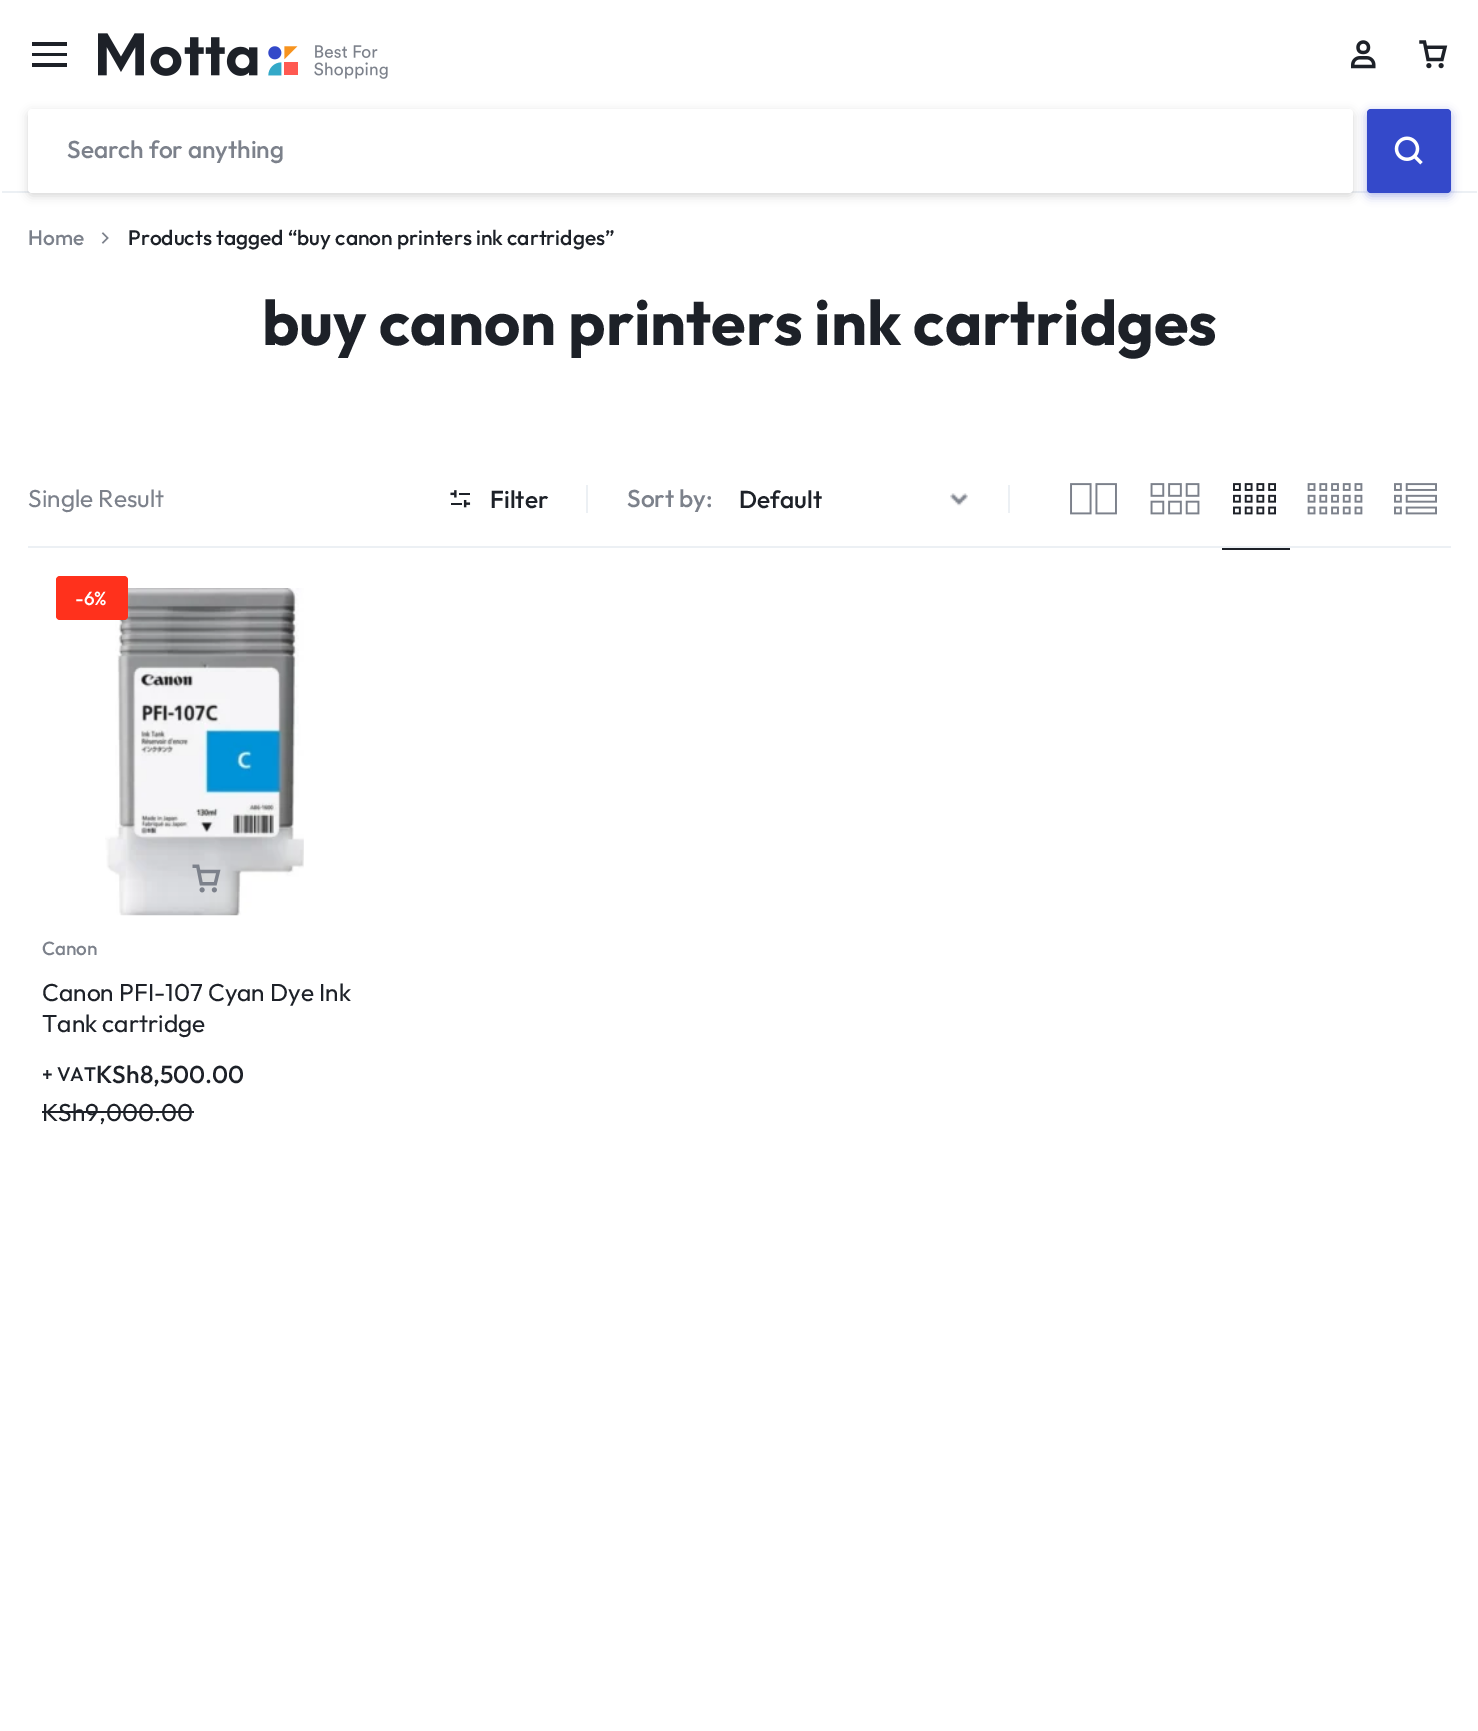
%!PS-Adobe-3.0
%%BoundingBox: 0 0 1478 1731
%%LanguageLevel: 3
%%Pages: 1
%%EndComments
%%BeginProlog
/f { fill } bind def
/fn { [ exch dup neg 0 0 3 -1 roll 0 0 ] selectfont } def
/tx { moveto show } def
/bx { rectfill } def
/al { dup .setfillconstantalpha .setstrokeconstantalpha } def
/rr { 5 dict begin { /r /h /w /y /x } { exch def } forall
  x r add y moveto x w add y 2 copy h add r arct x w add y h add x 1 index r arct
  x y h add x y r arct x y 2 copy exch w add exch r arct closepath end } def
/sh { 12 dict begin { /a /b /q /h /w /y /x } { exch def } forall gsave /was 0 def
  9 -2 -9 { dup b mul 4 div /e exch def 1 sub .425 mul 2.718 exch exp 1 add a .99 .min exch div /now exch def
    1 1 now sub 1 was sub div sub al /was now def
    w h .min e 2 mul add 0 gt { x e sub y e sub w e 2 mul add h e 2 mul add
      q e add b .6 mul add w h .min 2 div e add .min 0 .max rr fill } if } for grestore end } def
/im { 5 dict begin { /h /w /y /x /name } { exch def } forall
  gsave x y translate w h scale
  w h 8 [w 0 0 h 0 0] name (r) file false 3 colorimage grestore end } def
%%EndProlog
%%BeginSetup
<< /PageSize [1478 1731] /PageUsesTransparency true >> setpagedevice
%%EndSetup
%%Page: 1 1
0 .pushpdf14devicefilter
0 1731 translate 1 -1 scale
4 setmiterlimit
1 setgray
0 0 1478 1731 bx
0.114 0.129 0.157 setrgbcolor
32 42 35 4 bx
32 53 35 3 bx
32 63 35 4 bx
(image0.raw) 98 33 290 46 im
(image1.raw) 1351 40 25 29 im
(image2.raw) 1419 40 29 29 im
0.925 0.941 0.957 setrgbcolor
2 191 1475 2 bx
0.204 0.286 0.792 setrgbcolor
1367 112 84 84 4 5 0.4 sh
1367 109 84 84 4 rr f
0 setgray
28 112 1325 84 4 5 0.16 sh
1 setgray
28 109 1325 84 4 rr f
/Outfit-Medium 24.5 fn
0.486 0.506 0.545 setrgbcolor
(Search for anything) 67 158 tx
(image3.raw) 1394 136 29 29 im
/Outfit-Medium 21 fn
(Home) 28 245 tx
(image4.raw) 101 232 8 12 im
0.114 0.129 0.157 setrgbcolor
(Products tagged “buy canon printers ink cartridges”) 128 245 tx
/Outfit-Bold 63 fn
(buy canon printers ink cartridges) 262 345 tx
0.925 0.941 0.957 setrgbcolor
28 546 1423 2 bx
/Outfit-Regular 24.5 fn
0.486 0.506 0.545 setrgbcolor
(Single Result) 28 507 tx
(image5.raw) 450 490 21 18 im
/Outfit-Medium 24.5 fn
0.114 0.129 0.157 setrgbcolor
(Filter) 490 508 tx
0.925 0.941 0.957 setrgbcolor
586 485 2 28 bx
0.486 0.506 0.545 setrgbcolor
(Sort by:) 627 507 tx
(image6.raw) 950 493 18 13 im
0.114 0.129 0.157 setrgbcolor
(Default) 739 508 tx
0.925 0.941 0.957 setrgbcolor
1008 485 2 28 bx
(image7.raw) 1070 483 47 32 im
(image8.raw) 1150 483 50 32 im
(image9.raw) 1233 483 43 32 im
0.114 0.129 0.157 setrgbcolor
1222 548 68 2 bx
(image10.raw) 1307 483 56 32 im
(image11.raw) 1394 483 43 32 im
(image12.raw) 105 588 199 328 im
1 0.192 0.11 setrgbcolor
56 576 72 44 4 rr f
/Outfit-Medium 19 fn
1 setgray
(-6%) 75 605 tx
(image13.raw) 192 864 29 29 im
0.486 0.506 0.545 setrgbcolor
(Canon) 42 955 tx
/Outfit-Regular 24.5 fn
0.114 0.129 0.157 setrgbcolor
(Canon PFI-107 Cyan Dye Ink) 42 1001 tx
(Tank cartridge) 42 1032 tx
/Outfit-Medium 19.5 fn
(+ VAT) 42 1081 tx
/Outfit-Medium 24.5 fn
(KSh8,500.00) 96 1083 tx
/Outfit-Regular 24.5 fn
(KSh9,000.00) 42 1121 tx
42 1111 152 2 bx
.poppdf14devicefilter showpage
%%EOF
